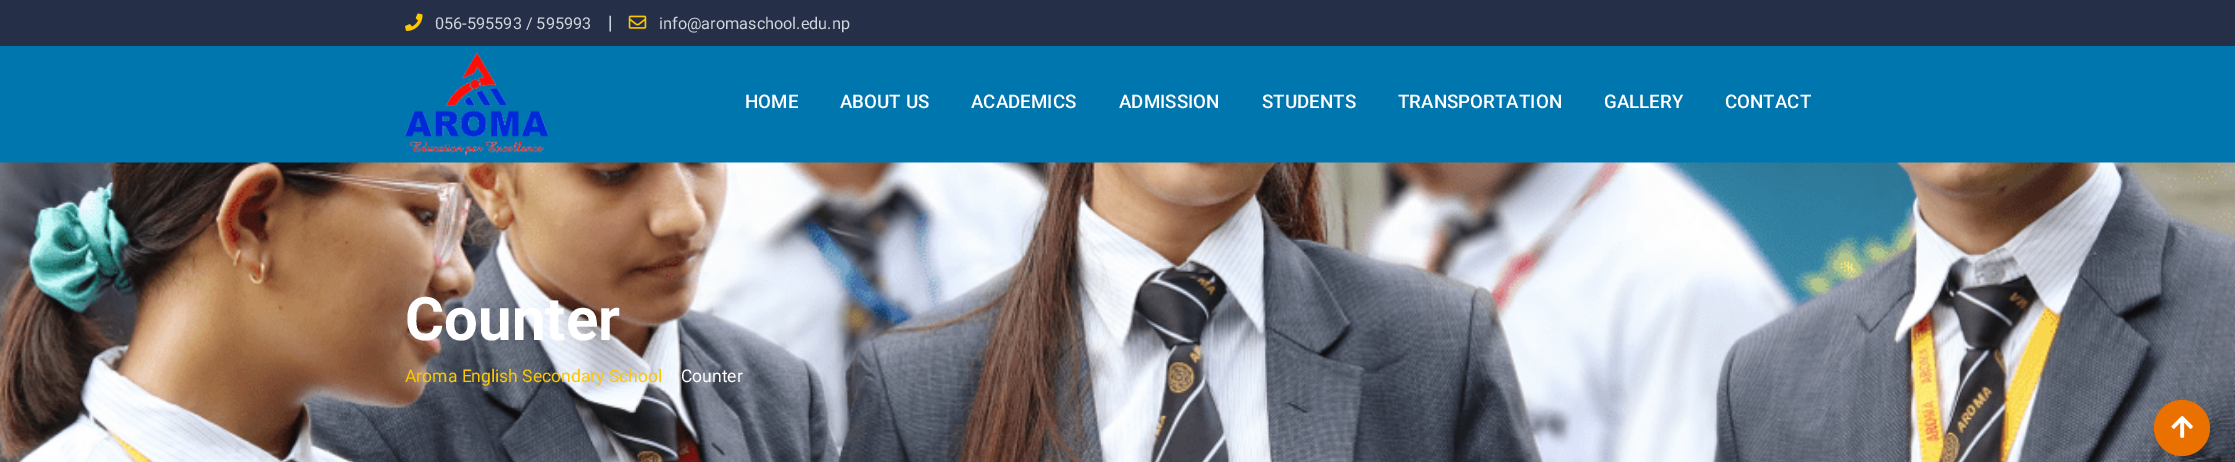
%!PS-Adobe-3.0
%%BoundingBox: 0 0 2235 462
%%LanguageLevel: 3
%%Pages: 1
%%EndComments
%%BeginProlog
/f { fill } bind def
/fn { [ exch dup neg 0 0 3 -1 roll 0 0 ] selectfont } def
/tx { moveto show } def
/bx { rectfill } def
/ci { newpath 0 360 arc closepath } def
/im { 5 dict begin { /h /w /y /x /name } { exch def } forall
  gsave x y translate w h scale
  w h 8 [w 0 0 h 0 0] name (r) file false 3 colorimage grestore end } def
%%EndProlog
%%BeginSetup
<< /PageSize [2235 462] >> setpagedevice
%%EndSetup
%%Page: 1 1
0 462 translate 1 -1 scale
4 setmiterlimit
0 0.463 0.686 setrgbcolor
0 0 2235 462 bx
0.145 0.184 0.278 setrgbcolor
0 0 2235 46 bx
(image0.raw) 405 13 18 18 im
/Roboto-Regular 16.25 fn
0.816 0.839 0.867 setrgbcolor
(056-595593 / 595993) 435 29 tx
/Roboto-Regular 18.75 fn
(|) 608 29 tx
(image1.raw) 628 15 19 14 im
/Roboto-Regular 16.25 fn
(info@aromaschool.edu.np) 659 29 tx
(image2.raw) 405 52 144 105 im
/Roboto-Medium 18.75 fn
1 setgray
(HOME) 745 108 tx
(ABOUT US) 840 108 tx
(ACADEMICS) 971 108 tx
(ADMISSION) 1119 108 tx
(STUDENTS) 1262 108 tx
(TRANSPORTATION) 1398 108 tx
(GALLERY) 1604 108 tx
(CONTACT) 1725 108 tx
(image3.raw) 0 162 2235 300 im
/Roboto-Bold 60 fn
(Counter) 405 340 tx
/Roboto-Regular 17.5 fn
0.992 0.784 0 setrgbcolor
(Aroma English Secondary School) 405 382 tx
1 setgray
(Counter) 681 382 tx
0.918 0.443 0 setrgbcolor
2182 428 28 ci f
(image4.raw) 2171 416 22 22 im
showpage
%%EOF
